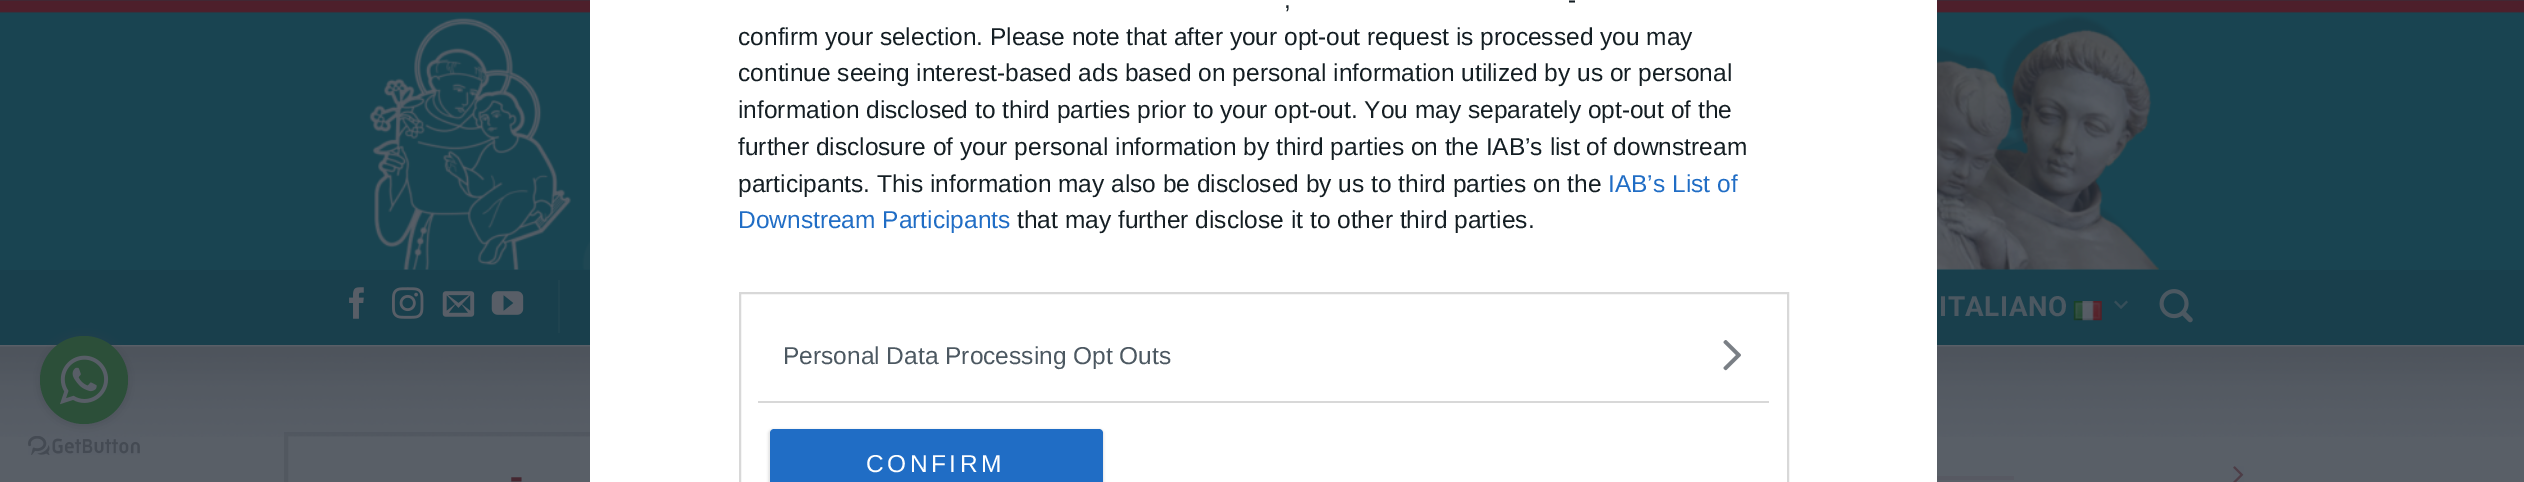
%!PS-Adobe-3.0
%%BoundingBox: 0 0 2524 482
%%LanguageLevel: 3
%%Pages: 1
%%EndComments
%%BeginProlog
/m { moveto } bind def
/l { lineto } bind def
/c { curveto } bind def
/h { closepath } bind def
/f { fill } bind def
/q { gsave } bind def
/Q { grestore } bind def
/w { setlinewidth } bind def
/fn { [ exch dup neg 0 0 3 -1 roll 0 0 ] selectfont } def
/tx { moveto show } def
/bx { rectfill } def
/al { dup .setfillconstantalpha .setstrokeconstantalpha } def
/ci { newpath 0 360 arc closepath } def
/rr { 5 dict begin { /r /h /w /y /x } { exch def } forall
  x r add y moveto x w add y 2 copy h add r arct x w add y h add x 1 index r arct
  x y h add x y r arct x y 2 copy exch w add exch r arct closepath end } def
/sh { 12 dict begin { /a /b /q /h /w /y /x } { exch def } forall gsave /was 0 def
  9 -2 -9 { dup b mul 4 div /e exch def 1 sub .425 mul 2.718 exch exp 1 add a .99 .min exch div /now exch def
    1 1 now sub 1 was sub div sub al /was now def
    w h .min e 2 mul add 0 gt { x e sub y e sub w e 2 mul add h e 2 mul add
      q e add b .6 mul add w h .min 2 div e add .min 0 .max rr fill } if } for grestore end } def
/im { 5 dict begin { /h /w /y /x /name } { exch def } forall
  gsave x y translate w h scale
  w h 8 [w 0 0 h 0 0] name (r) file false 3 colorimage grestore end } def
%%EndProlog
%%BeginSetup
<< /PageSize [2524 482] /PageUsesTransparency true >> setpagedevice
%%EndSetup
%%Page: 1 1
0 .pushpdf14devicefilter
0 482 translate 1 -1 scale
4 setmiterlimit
0.349 0.373 0.404 setrgbcolor
0 0 2524 482 bx
(image3.raw) 0 0 2524 270 im
(image4.raw) 369 15 1790 255 im
0.098 0.247 0.298 setrgbcolor
0 270 2524 75 bx
(image12.raw) 0 346 2524 91 im
0.1 al
0.098 0.122 0.153 setrgbcolor
4 w
286 434 528 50 rectstroke
1 al
1 setgray
590 0 1347 482 bx
/LiberationSans-Regular 24.5 fn
0.078 0.118 0.137 setrgbcolor
(-) 1568 8 tx
(,) 1284 8 tx
q
739 0 1050 266 rectclip
(confirm your selection. Please note that after your opt-out request is processed you may) 738 45 tx
(continue seeing interest-based ads based on personal information utilized by us or personal) 738 81 tx
Q
(information disclosed to third parties prior to your opt-out. You may separately opt-out of the) 738 118 tx
(further disclosure of your personal information by third parties on the IAB’s list of downstream) 738 155 tx
(participants. This information may also be disclosed by us to third parties on the) 738 192 tx
0.125 0.427 0.773 setrgbcolor
(IAB’s List of) 1608 192 tx
(Downstream Participants) 738 228 tx
0.078 0.118 0.137 setrgbcolor
(that may further disclose it to other third parties.) 1017 228 tx
0.847 setgray
2 w
740 293 1048 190 rectstroke
758 401 1011 2 bx
0.298 0.345 0.38 setrgbcolor
(Personal Data Processing Opt Outs) 783 364 tx
(image0.raw) 1723 340 18 31 im
0 setgray
768 429 336 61 5 1 0.1 sh
0.125 0.427 0.773 setrgbcolor
774 429 m 1099 429 l 1101 429 1103 431 1103 433 c 1103 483 l 770 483 l 770 433 l 770 431 772 429 774 429 c h f
1 setgray
866 472 m 3.5 0 (CONFIRM) ashow
(image2.raw) 28 436 112 19 im
0.231 0.255 0.286 setrgbcolor
40 338 88 87 43.5 6 0.4 sh
0.173 0.31 0.224 setrgbcolor
84 380 44 ci f
(image1.raw) 60 355 49 50 im
(image5.raw) 349 287 15 32 im
(image6.raw) 392 287 32 32 im
(image7.raw) 442 291 33 26 im
(image8.raw) 491 291 33 24 im
0.122 0.263 0.31 setrgbcolor
558 280 2 53 bx
/Roboto-Bold 27.75 fn
0.298 0.345 0.38 setrgbcolor
1939 316 m 0.5 0 (ITALIANO) ashow
(image9.raw) 2073 301 29 20 im
(image10.raw) 2114 300 14 9 im
(image11.raw) 2159 289 34 34 im
/Roboto-Bold 38 fn
0.271 0.153 0.192 setrgbcolor
(-) 509 491 tx
0.341 0.349 0.384 setrgbcolor
1937 476 77 4 bx
(image13.raw) 2233 466 11 16 im
.poppdf14devicefilter showpage
%%EOF
